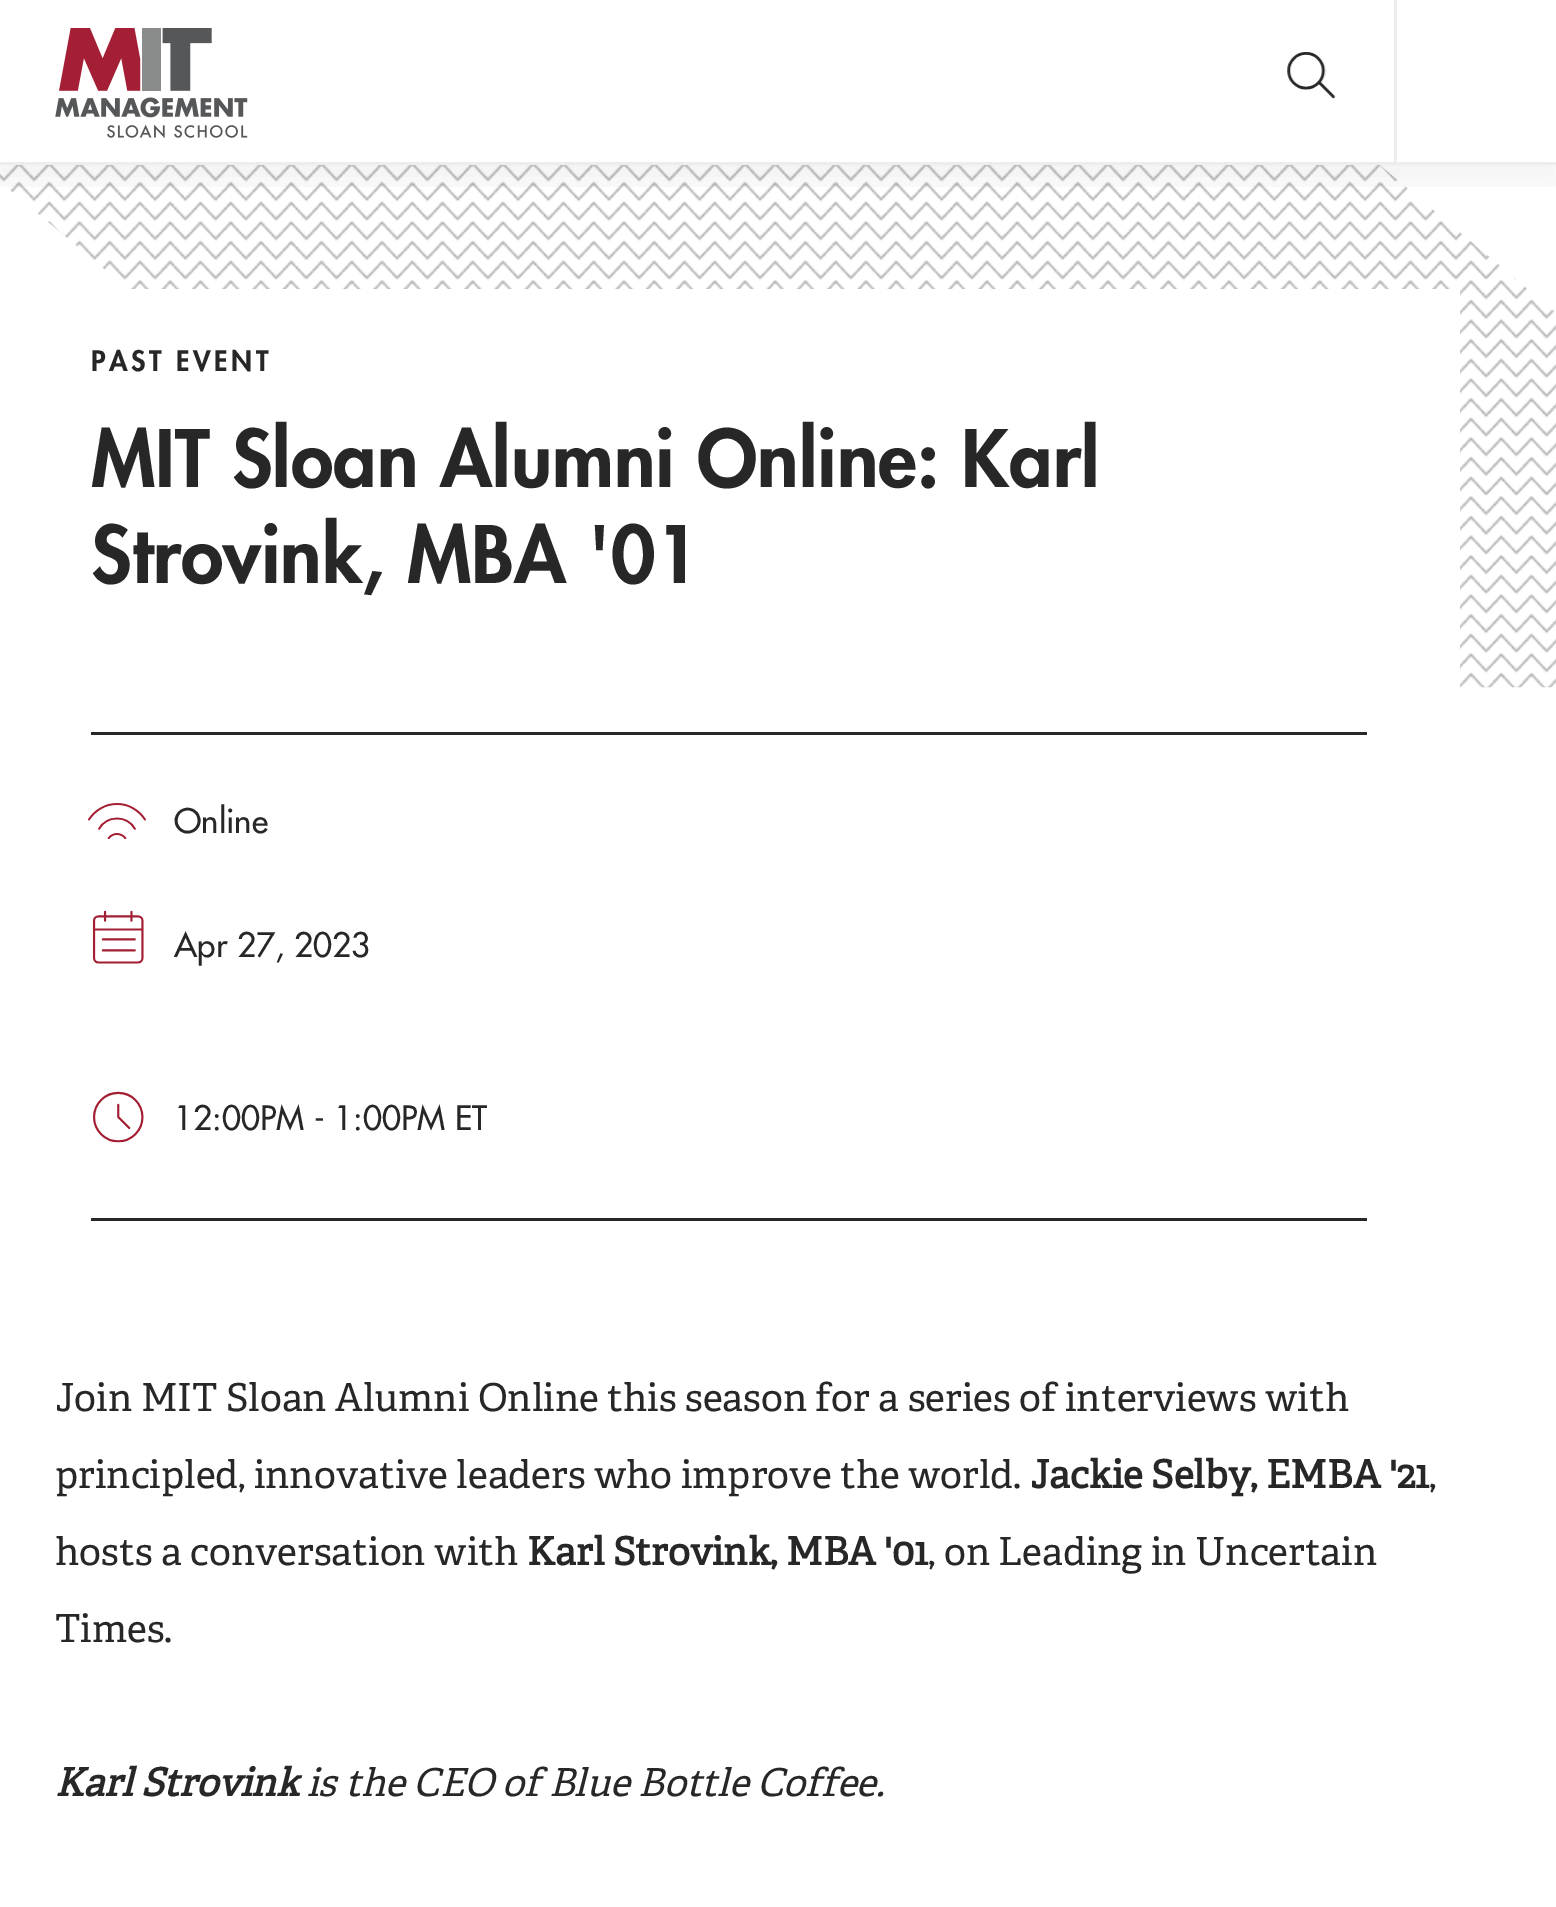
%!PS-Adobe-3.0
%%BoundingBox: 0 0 1556 1907
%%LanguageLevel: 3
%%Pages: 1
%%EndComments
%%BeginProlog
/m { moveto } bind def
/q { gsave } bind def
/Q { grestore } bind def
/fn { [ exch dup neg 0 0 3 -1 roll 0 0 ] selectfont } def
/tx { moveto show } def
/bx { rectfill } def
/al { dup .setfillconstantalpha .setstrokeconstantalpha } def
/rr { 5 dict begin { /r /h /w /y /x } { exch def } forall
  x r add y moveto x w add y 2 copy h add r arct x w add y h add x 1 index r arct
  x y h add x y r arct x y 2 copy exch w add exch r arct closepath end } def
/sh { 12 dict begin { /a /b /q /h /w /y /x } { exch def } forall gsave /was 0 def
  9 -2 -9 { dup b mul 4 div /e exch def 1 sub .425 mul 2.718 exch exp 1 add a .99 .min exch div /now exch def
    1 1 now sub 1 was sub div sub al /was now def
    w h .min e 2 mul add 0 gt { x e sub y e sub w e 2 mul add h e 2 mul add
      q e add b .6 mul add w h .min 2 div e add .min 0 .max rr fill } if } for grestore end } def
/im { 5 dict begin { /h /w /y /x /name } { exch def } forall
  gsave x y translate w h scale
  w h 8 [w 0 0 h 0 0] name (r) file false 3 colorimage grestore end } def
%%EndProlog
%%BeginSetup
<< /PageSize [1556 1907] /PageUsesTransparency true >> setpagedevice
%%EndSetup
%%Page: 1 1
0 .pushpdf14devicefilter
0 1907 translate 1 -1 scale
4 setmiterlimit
1 setgray
0 0 1556 1907 bx
(image2.raw) 0 165 1556 523 im
q
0 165 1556 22 rectclip
0 setgray
-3 11 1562 171 0 20.5 0.05 sh
Q
0.929 setgray
0 162 1556 3 bx
(image0.raw) 1287 52 49 47 im
1394 0 3 162 bx
(image1.raw) 55 28 193 110 im
1 setgray
129 289 1331 399 bx
0.153 setgray
91 732 1276 3 bx
/Futura-Black 27.5 fn
91 371 m 3.5 0 (PAST EVENT) ashow
/Futura-Black 77 fn
(MIT Sloan Alumni Online: Karl) 91 487 tx
(Strovink, MBA '01) 91 583 tx
91 1218 1276 3 bx
(image3.raw) 88 803 58 36 im
/Futura-Medium 33 fn
(Online) 174 833 tx
(image4.raw) 92 910 52 54 im
(Apr 27, 2023) 174 957 tx
(image5.raw) 93 1091 51 52 im
(12:00PM - 1:00PM ET) 174 1130 tx
/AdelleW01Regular-Regular 38.5 fn
(Join MIT Sloan Alumni Online this season for a series of interviews with) 55 1411 tx
(principled, innovative leaders who improve the world.) 55 1488 tx
/AdelleW01Regular-Bold 38.5 fn
(Jackie Selby, EMBA '21) 1030 1488 tx
/AdelleW01Regular-Regular 38.5 fn
(,) 1429 1488 tx
(hosts a conversation with) 55 1565 tx
/AdelleW01Regular-Bold 38.5 fn
(Karl Strovink, MBA '01) 527 1565 tx
/AdelleW01Regular-Regular 38.5 fn
(, on Leading in Uncertain) 928 1565 tx
(Times.) 55 1642 tx
/AdelleW01Regular-BoldItalic 38.5 fn
(Karl Strovink) 55 1796 tx
/AdelleW01Regular-Italic 38.5 fn
(is the CEO of Blue Bottle Coffee.) 307 1796 tx
.poppdf14devicefilter showpage
%%EOF
